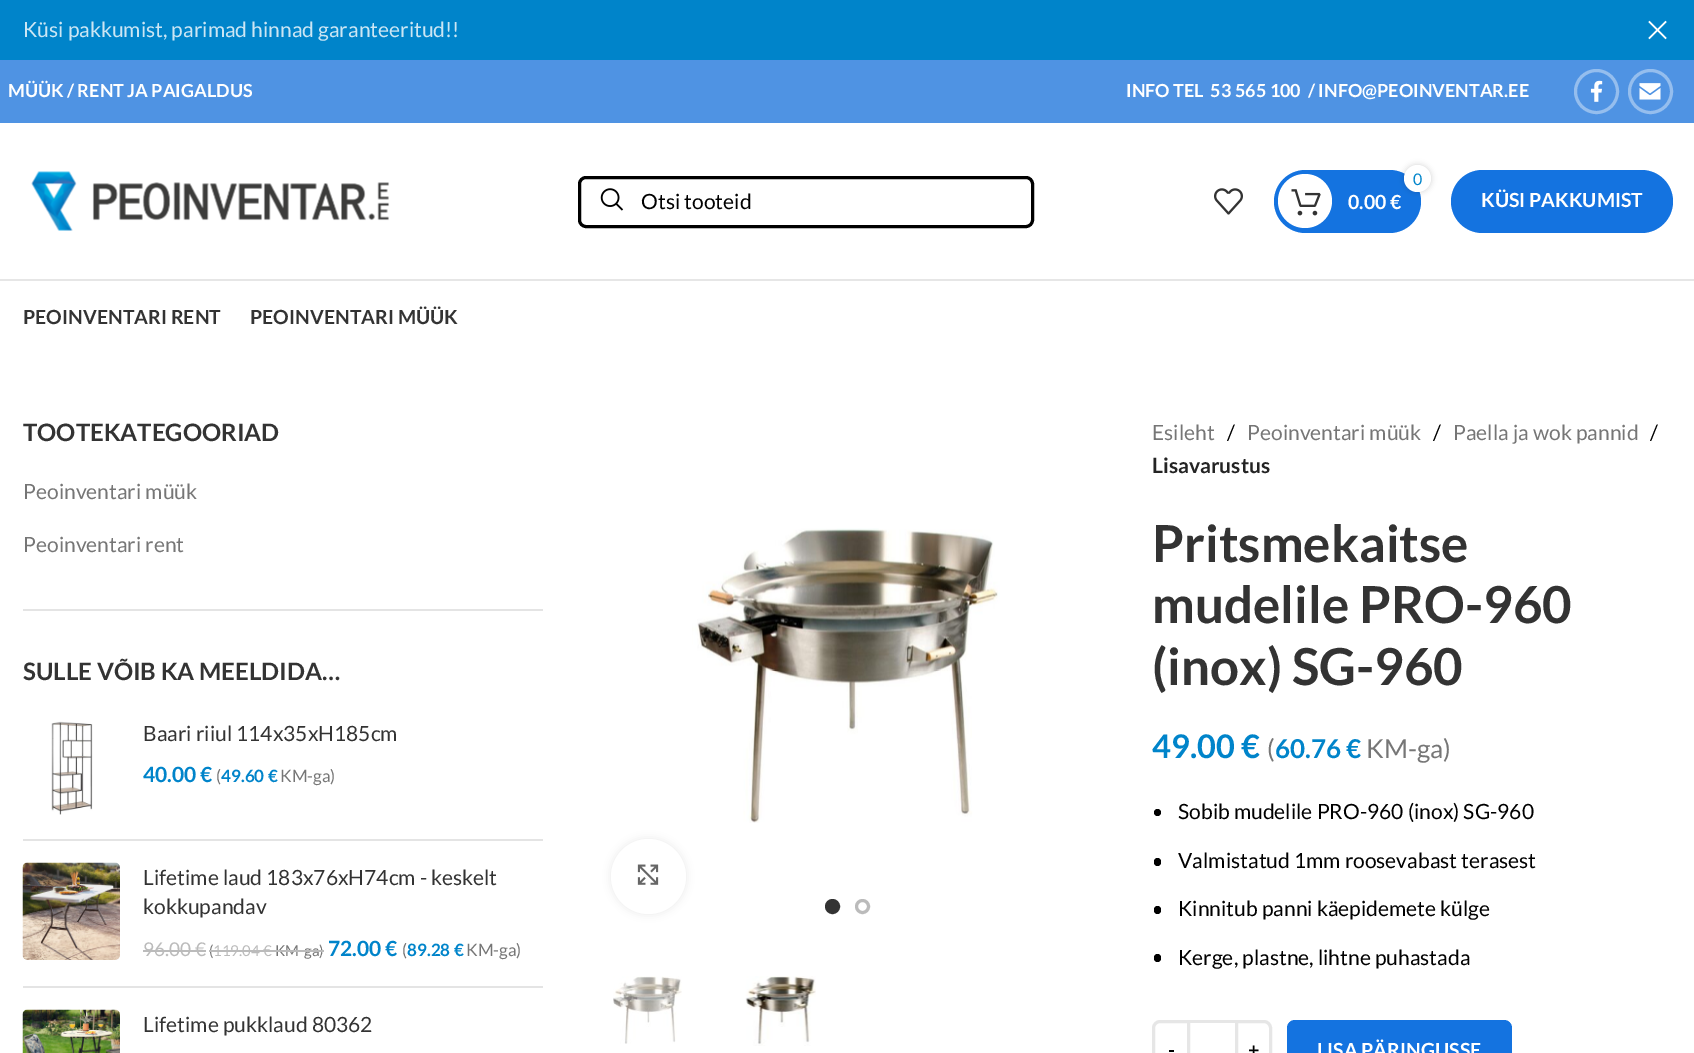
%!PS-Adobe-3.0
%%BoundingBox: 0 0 1694 1053
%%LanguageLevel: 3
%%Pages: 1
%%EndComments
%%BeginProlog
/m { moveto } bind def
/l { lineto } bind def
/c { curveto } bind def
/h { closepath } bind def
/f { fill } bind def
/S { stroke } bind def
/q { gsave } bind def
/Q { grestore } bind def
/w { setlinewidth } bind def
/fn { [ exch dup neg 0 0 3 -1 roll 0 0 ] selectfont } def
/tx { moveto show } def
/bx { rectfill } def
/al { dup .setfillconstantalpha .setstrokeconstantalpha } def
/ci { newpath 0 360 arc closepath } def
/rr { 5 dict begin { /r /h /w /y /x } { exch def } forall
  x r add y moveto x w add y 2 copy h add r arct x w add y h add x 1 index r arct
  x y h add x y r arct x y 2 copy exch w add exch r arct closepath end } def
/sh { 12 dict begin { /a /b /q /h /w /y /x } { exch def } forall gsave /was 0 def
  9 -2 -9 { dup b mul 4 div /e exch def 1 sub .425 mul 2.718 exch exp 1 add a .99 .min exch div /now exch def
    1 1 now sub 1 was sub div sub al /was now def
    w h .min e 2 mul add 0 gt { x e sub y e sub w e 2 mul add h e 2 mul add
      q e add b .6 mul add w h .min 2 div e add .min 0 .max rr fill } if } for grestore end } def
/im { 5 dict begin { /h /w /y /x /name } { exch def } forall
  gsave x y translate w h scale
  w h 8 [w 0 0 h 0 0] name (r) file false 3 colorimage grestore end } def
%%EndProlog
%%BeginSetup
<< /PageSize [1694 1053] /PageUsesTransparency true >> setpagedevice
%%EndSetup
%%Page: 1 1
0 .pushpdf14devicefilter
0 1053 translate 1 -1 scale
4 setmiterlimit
1 setgray
0 0 1694 1053 bx
0 0.518 0.792 setrgbcolor
0 0 1694 60 bx
/Lato-Regular 21 fn
0.8 0.902 0.957 setrgbcolor
(Küsi pakkumist, parimad hinnad garanteeritud!!) 23 37 tx
(image0.raw) 1648 20 19 20 im
0.31 0.576 0.89 setrgbcolor
0 60 1694 63 bx
/Lato-Bold 18 fn
1 setgray
(MÜÜK / RENT JA PAIGALDUS) 8 97 tx
(INFO TEL  53 565 100) 1126 97 tx
(/ INFO@PEOINVENTAR.EE) 1308 97 tx
0.584 0.745 0.933 setrgbcolor
3 w
1596.5 91.5 21 ci S
(image1.raw) 1590 80 13 22 im
1650.5 91.5 21 ci S
(image2.raw) 1639 83 22 17 im
0.902 setgray
0 279 1694 2 bx
(image3.raw) 31 171 359 60 im
0 setgray
579.5 177.5 453 49 6.5 rr S
(image4.raw) 600 188 24 23 im
/Lato-Regular 21 fn
(Otsi tooteid) 641 209 tx
(image5.raw) 1214 188 29 27 im
0.078 0.451 0.878 setrgbcolor
1274 170 147 63 31.5 rr f
1 setgray
1305 201 27 ci f
0 setgray
1404 165 27 27 13.5 3 0.17 sh
1 setgray
1417.5 178.5 13.5 ci f
/Lato-Regular 16 fn
0 0.518 0.792 setrgbcolor
(0) 1413 185 tx
(image6.raw) 1291 189 30 27 im
/Lato-Bold 19.5 fn
1 setgray
(0.00 €) 1348 209 tx
0.078 0.451 0.878 setrgbcolor
1451 170 222 63 31.5 rr f
1 setgray
(KÜSI PAKKUMIST) 1481 207 tx
0.2 setgray
(PEOINVENTARI RENT) 23 324 tx
(PEOINVENTARI MÜÜK) 250 324 tx
0.894 setgray
23 609 520 2 bx
/Lato-Bold 24 fn
0.2 setgray
(TOOTEKATEGOORIAD) 23 441 tx
/Lato-Regular 21 fn
0.463 setgray
(Peoinventari müük) 23 499 tx
(Peoinventari rent) 23 552 tx
/Lato-Bold 24 fn
0.2 setgray
(SULLE VÕIB KA MEELDIDA…) 23 680 tx
0.894 setgray
23 839 520 2 bx
(image7.raw) 51 721 42 94 im
/Lato-Regular 21 fn
0.2 setgray
(Baari riiul 114x35xH185cm) 143 741 tx
/Lato-Bold 21 fn
0 0.518 0.792 setrgbcolor
(40.00 €) 143 782 tx
/Lato-Regular 17 fn
0.463 setgray
(\() 216 782 tx
/Lato-Bold 17 fn
0 0.518 0.792 setrgbcolor
(49.60 €) 221 782 tx
/Lato-Regular 17 fn
0.463 setgray
(KM-ga\)) 280 782 tx
0.894 setgray
23 986 520 2 bx
(image8.raw) 22 862 98 98 im
/Lato-Regular 21 fn
0.2 setgray
(Lifetime laud 183x76xH74cm - keskelt) 143 885 tx
(kokkupandav) 143 914 tx
/Lato-Regular 19 fn
0.733 setgray
(96.00 €) 143 956 tx
143 950 63 2 bx
/Lato-Regular 15 fn
0.463 setgray
(\() 209 956 tx
0.733 setgray
(119.04 €) 213 956 tx
209 950 5 2 bx
213 950 59 2 bx
0.463 setgray
(KM-ga\)) 275 956 tx
0.733 setgray
272 950 52 2 bx
/Lato-Bold 21 fn
0 0.518 0.792 setrgbcolor
(72.00 €) 328 956 tx
/Lato-Regular 17 fn
0.463 setgray
(\() 402 956 tx
/Lato-Bold 17 fn
0 0.518 0.792 setrgbcolor
(89.28 €) 407 956 tx
/Lato-Regular 17 fn
0.463 setgray
(KM-ga\)) 466 956 tx
(image9.raw) 22 1009 98 44 im
/Lato-Regular 21 fn
0.2 setgray
(Lifetime pukklaud 80362) 143 1032 tx
(image10.raw) 692 528 308 295 im
0 setgray
611 839 75 75 37.5 4 0.08 sh
1 setgray
648.5 876.5 37.5 ci f
(image11.raw) 637 864 22 21 im
0.2 setgray
832.5 906.5 6 ci q f Q
S
0.733 setgray
862.5 906.5 6 ci S
(image12.raw) 613 976 69 68 im
(image13.raw) 745 976 71 70 im
0.463 setgray
(Esileht) 1152 440 tx
0 setgray
(/) 1227 440 tx
0.463 setgray
(Peoinventari müük) 1247 440 tx
0 setgray
(/) 1433 440 tx
0.463 setgray
(Paella ja wok pannid) 1453 440 tx
0 setgray
(/) 1650 440 tx
/Lato-Bold 21 fn
0.141 setgray
(Lisavarustus) 1152 473 tx
/Lato-Bold 51 fn
0.2 setgray
(Pritsmekaitse) 1152 562 tx
(mudelile PRO-960) 1152 623 tx
(\(inox\) SG-960) 1152 685 tx
/Lato-Bold 32.5 fn
0 0.518 0.792 setrgbcolor
(49.00 €) 1152 758 tx
/Lato-Regular 26 fn
0.463 setgray
(\() 1267 758 tx
/Lato-Bold 26 fn
0 0.518 0.792 setrgbcolor
(60.76 €) 1275 758 tx
/Lato-Regular 26 fn
0.463 setgray
(KM-ga\)) 1366 758 tx
0 setgray
1157.5 812.5 3.5 ci f
/Lato-Regular 21 fn
(Sobib mudelile PRO-960 \(inox\) SG-960) 1178 819 tx
1154 858 7 8 3.5 rr f
(Valmistatud 1mm roosevabast terasest) 1178 868 tx
1154 906 7 8 3.5 rr f
(Kinnitub panni käepidemete külge) 1178 916 tx
1154 954 7 8 3.5 rr f
(Kerge, plastne, lihtne puhastada) 1178 965 tx
0.902 setgray
1190 1020 45 3 bx
1160 1021.5 m 1188.5 1021.5 l 1188.5 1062.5 l 1160 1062.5 l 1156.5 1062.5 1153.5 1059.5 1153.5 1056 c 1153.5 1028 l 1153.5 1024.5 1156.5 1021.5 1160 1021.5 c h S
/Lato-Bold 19.5 fn
0 setgray
(-) 1168 1057 tx
0.902 setgray
1236.5 1021.5 m 1264 1021.5 l 1267.5 1021.5 1270.5 1024.5 1270.5 1028 c 1270.5 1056 l 1270.5 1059.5 1267.5 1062.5 1264 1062.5 c 1236.5 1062.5 l h S
0 setgray
(+) 1248 1057 tx
0.078 0.451 0.878 setrgbcolor
1287 1020 225 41 8 rr f
1 setgray
(LISA PÄRINGUSSE) 1317 1057 tx
.poppdf14devicefilter showpage
%%EOF
